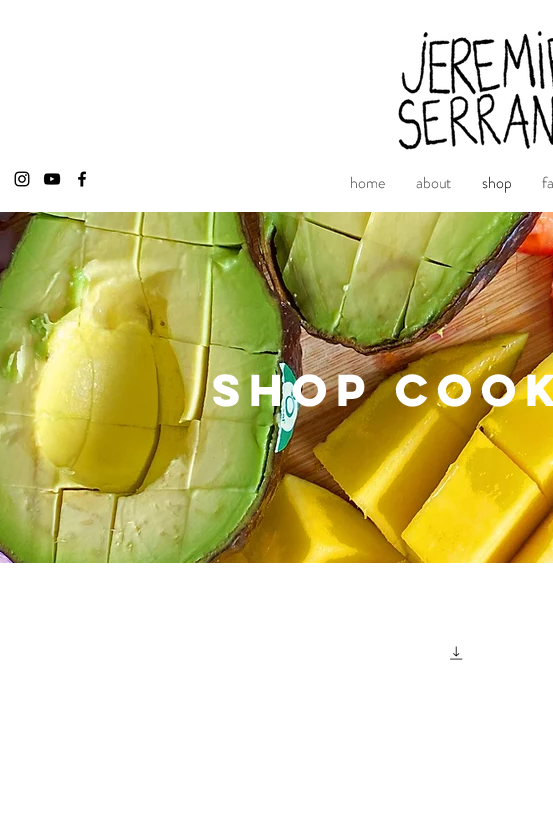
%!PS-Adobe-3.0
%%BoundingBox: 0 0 553 819
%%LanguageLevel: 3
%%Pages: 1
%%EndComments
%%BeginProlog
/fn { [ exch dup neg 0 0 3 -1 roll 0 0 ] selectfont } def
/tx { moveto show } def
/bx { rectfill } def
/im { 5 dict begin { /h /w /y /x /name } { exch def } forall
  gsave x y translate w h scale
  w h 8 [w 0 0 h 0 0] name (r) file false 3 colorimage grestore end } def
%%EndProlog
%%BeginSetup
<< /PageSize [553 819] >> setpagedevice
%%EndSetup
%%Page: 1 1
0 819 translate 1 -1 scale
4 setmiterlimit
1 setgray
0 0 553 819 bx
(image0.raw) 398 31 155 119 im
(image1.raw) 14 171 16 16 im
(image2.raw) 43 173 18 12 im
(image3.raw) 78 171 9 16 im
/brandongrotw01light-Light 16 fn
0.255 setgray
(home) 350 188 tx
(about) 416 188 tx
0 setgray
(shop) 482 188 tx
0.255 setgray
(fa) 542 188 tx
(image4.raw) 0 212 553 351 im
/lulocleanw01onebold-Bold 40 fn
1 setgray
(Shop Cook) 212 406 tx
(image5.raw) 450 646 13 14 im
showpage
%%EOF
